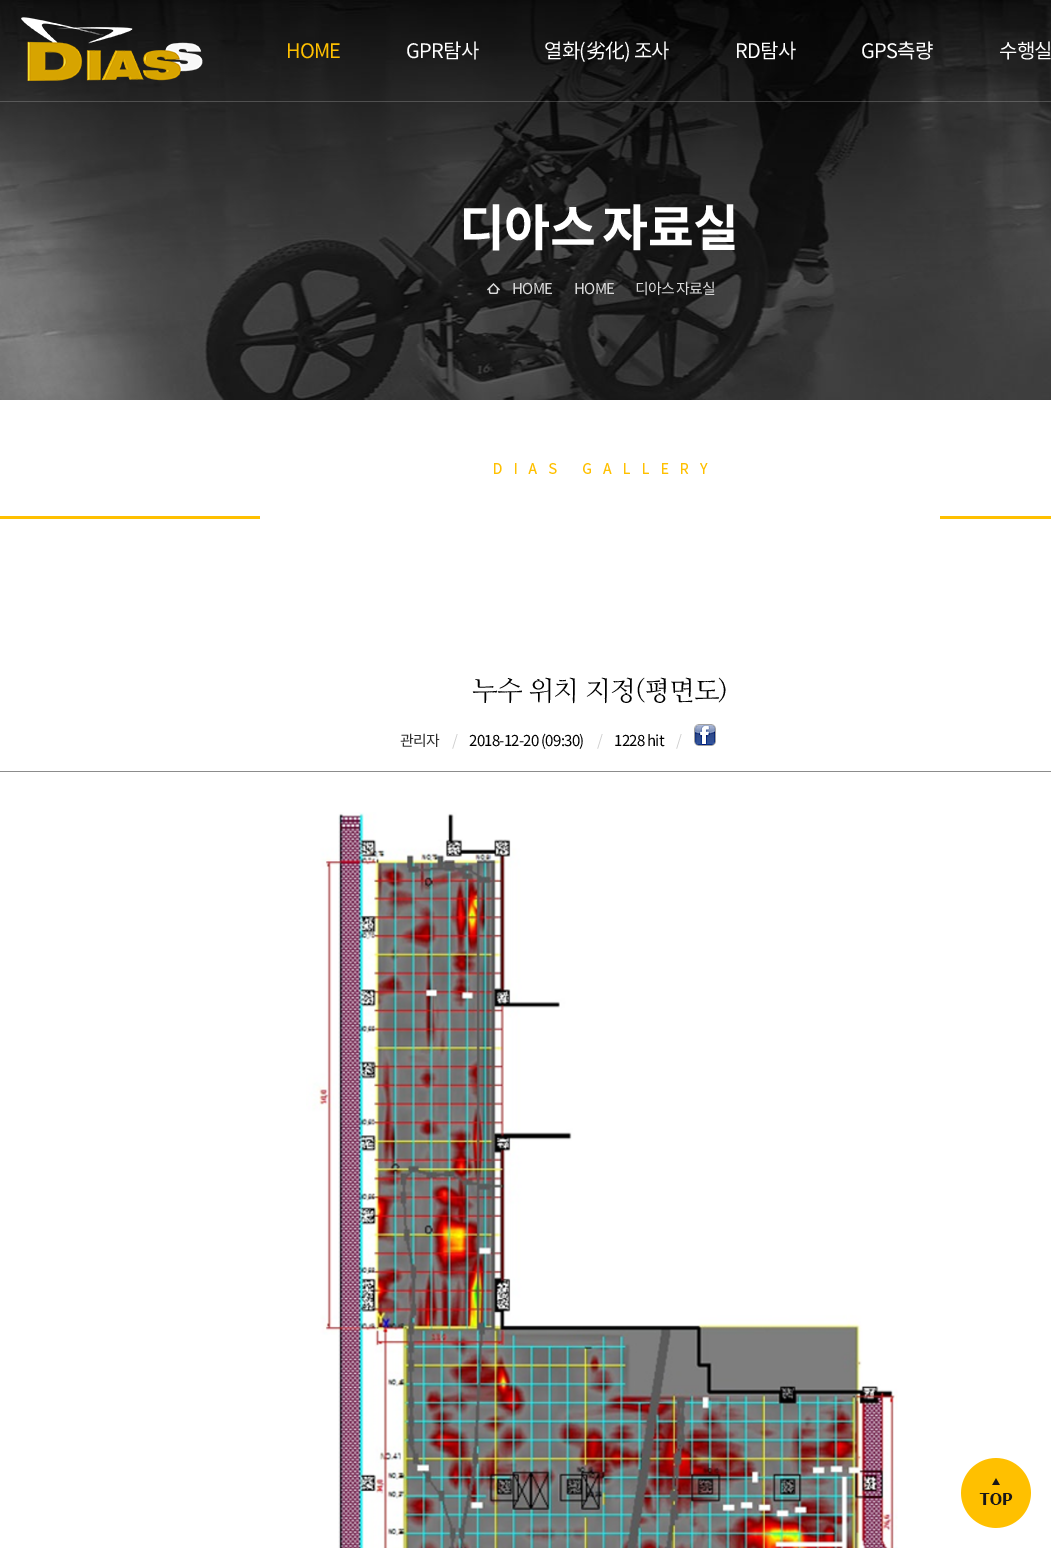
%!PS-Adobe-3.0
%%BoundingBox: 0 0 1051 1548
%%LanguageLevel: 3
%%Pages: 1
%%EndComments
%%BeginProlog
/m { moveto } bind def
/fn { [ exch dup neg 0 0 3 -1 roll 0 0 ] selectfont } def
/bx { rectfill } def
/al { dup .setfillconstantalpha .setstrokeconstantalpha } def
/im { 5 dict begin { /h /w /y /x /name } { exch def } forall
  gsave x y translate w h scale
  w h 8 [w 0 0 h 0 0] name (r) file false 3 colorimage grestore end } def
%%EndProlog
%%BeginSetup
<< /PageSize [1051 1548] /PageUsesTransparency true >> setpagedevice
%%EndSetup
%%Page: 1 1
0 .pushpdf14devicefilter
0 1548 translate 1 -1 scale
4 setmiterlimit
1 setgray
0 0 1051 1548 bx
(image1.raw) 0 0 1051 400 im
(image0.raw) 21 17 182 64 im
/NotoSansKR-Regular 20 fn
1 0.753 0 setrgbcolor
286 58 m -0.75 0 (HOME) ashow
1 setgray
406 58 m -0.75 0 (GPR탐사) ashow
544 58 m -0.75 0 (열화\() ashow
/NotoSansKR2-Regular 20 fn
586 58 m -0.75 0 (劣化) ashow
/NotoSansKR-Regular 20 fn
624 58 m -0.75 0 (\) 조사) ashow
735 58 m -0.75 0 (RD탐사) ashow
861 58 m -0.75 0 (GPS측량) ashow
999 58 m -0.75 0 (수행실) ashow
0.2 al
0 101 1051 1 bx
/NotoSansKR-Bold 50 fn
1 al
459 246 m -3 0 32 -0.75 0 (디아스 자료실) awidthshow
(image2.raw) 487 283 13 11 im
/NotoSansKR-Regular 15 fn
0.855 setgray
512 294 m -0.75 0 (HOME) ashow
574 294 m -0.75 0 (HOME) ashow
635 294 m -1 0 32 -0.75 0 (디아스 자료실) awidthshow
(image3.raw) 0 463 1051 56 im
/NanumMyeongjo-Regular 27 fn
0 setgray
472 700 m -0.75 0 (누수 위치 지정\(평면도\)) ashow
/NotoSansKR-Regular 15 fn
0.184 setgray
400 746 m -0.75 0 (관리자) ashow
0.82 setgray
452 746 m -0.75 0 (/) ashow
0 setgray
469 746 m -0.75 0 (2018-12-20 \(09:30\)) ashow
0.82 setgray
597 746 m -0.75 0 (/) ashow
0 setgray
614 746 m -0.75 0 (1228 hit) ashow
0.82 setgray
676 746 m -0.75 0 (/) ashow
(image4.raw) 694 724 22 22 im
0.549 setgray
0 771 1051 1 bx
(image5.raw) 306 812 592 736 im
(image6.raw) 961 1458 70 70 im
.poppdf14devicefilter showpage
%%EOF
